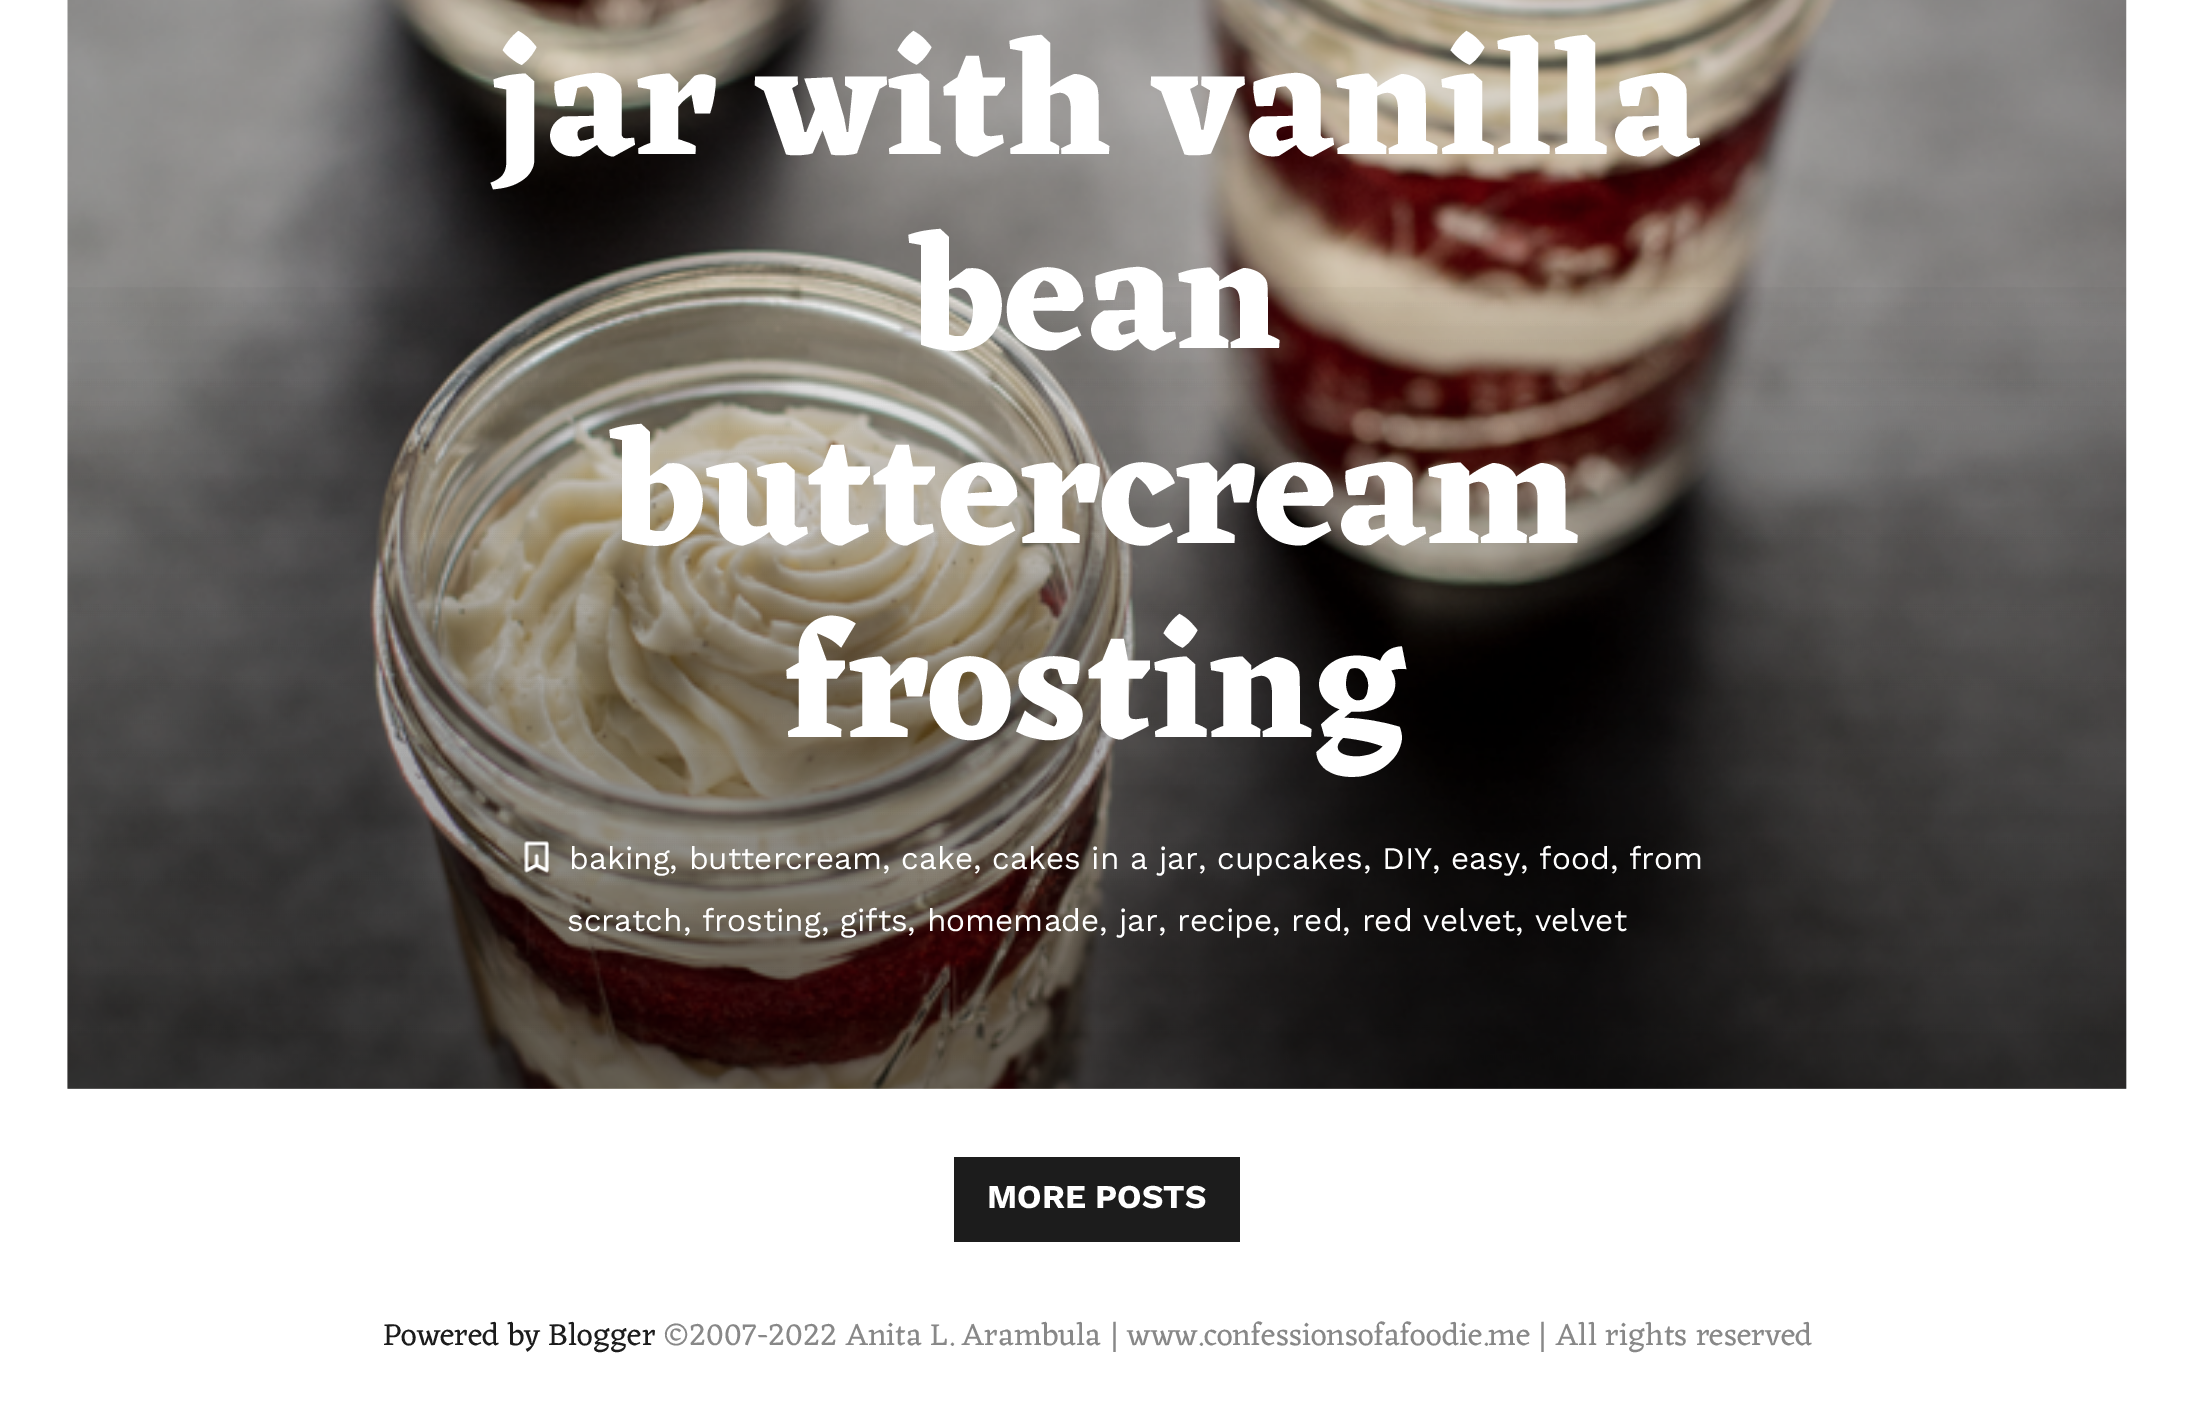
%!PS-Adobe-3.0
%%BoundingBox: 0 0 2193 1407
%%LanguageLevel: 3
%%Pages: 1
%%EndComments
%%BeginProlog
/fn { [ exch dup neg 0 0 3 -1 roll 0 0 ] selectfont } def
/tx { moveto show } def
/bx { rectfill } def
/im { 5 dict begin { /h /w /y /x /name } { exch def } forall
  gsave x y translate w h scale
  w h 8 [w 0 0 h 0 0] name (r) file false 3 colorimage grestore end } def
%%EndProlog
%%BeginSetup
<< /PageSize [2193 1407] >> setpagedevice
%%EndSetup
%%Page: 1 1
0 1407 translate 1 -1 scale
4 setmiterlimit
1 setgray
0 0 2193 1407 bx
(image0.raw) 67 0 2060 1089 im
/Eczar-Bold 162 fn
(jar with vanilla) 492 154 tx
(image2.raw) 67 287 2060 802 im
(bean) 912 348 tx
(buttercream) 613 543 tx
(frosting) 785 737 tx
(image1.raw) 524 841 25 32 im
/WorkSans-Regular 31.6 fn
(baking, buttercream, cake, cakes in a jar, cupcakes, DIY, easy, food, from) 569 869 tx
(scratch, frosting, gifts, homemade, jar, recipe, red, red velvet, velvet) 567 931 tx
0.11 setgray
954 1157 286 85 bx
/WorkSans-Bold 33.25 fn
1 setgray
(MORE POSTS) 987 1208 tx
/Eczar-Regular 31.6 fn
0.11 setgray
(Powered by Blogger) 383 1345 tx
0.533 setgray
(©2007-2022 Anita L. Arambula | www.confessionsofafoodie.me | All rights reserved) 663 1345 tx
showpage
%%EOF
